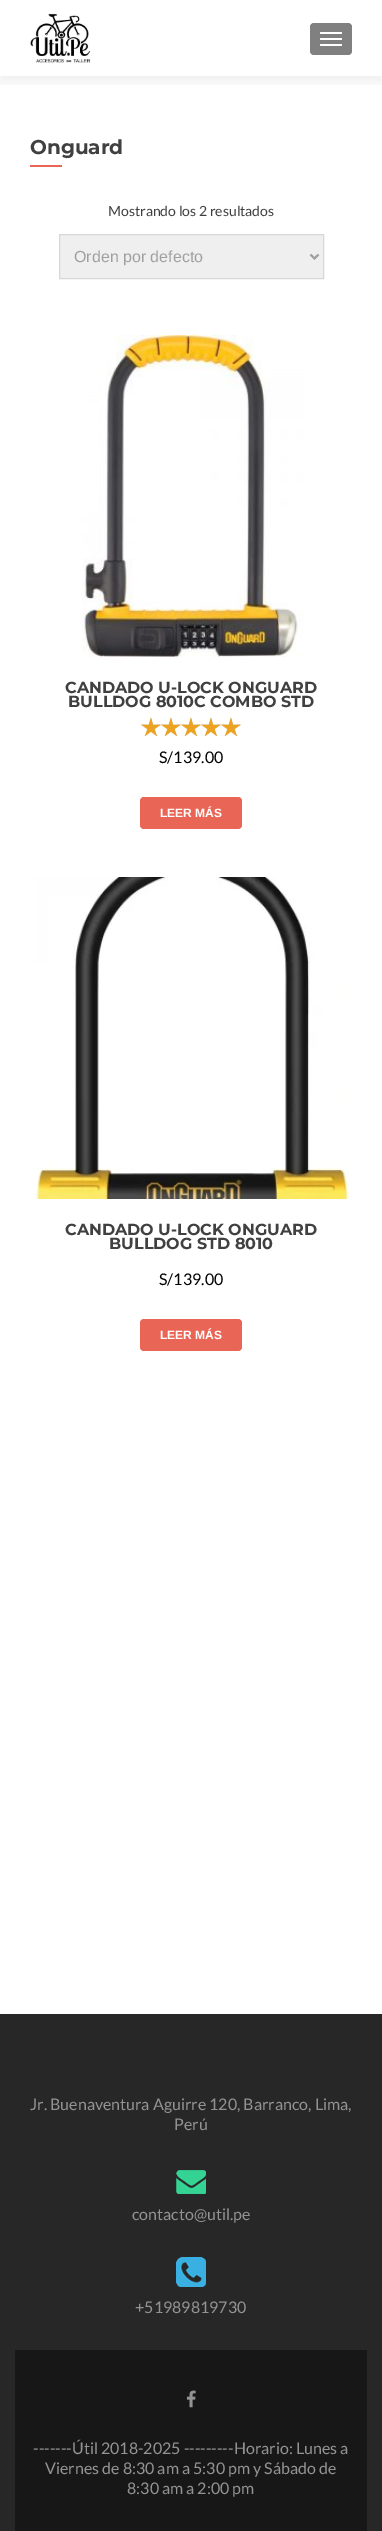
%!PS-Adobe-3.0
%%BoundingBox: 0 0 382 2531
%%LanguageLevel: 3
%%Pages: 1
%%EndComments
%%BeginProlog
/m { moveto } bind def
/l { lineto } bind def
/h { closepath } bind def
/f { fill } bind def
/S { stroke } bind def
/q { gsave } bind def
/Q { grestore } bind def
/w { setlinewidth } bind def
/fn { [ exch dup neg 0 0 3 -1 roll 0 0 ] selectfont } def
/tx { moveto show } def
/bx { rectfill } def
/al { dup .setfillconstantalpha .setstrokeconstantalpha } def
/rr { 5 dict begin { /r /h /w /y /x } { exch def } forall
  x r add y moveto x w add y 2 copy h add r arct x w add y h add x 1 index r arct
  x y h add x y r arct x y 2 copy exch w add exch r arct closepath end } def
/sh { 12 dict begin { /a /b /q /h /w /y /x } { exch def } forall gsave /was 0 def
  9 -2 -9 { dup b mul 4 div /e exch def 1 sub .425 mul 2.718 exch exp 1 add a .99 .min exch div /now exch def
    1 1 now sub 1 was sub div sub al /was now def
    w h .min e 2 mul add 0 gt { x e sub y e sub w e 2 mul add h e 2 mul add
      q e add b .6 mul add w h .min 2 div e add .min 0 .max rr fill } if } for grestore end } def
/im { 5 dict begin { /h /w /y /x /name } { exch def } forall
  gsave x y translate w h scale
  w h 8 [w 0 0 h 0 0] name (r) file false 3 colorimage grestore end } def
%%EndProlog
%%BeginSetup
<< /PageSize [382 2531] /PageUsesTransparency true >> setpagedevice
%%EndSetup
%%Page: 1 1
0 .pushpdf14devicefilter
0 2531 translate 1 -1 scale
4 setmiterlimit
1 setgray
0 0 382 2531 bx
q
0 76 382 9 rectclip
0.196 setgray
0 5 382 76 0 5.5 0.08 sh
Q
(image0.raw) 30 13 61 50 im
0.502 setgray
310 23 42 32 4 rr f
1 setgray
320 32 22 2 1 rr f
320 38 22 2 1 rr f
320 44 22 2 1 rr f
/Montserrat-Bold 20 fn
0.251 setgray
(Onguard) 30 154 tx
0.914 0.4 0.337 setrgbcolor
30 165 32 2 bx
/Lato-Regular 14 fn
0.251 setgray
(Mostrando los 2 resultados) 108 216 tx
0.937 setgray
59.5 234.5 m 323.5 234.5 l 323.5 278.5 l 59.5 278.5 l h q f Q
0.843 setgray
S
0.627 setgray
2 w
310.5 254.5 m 314.5 258.5 l 318.5 254.5 l S
/LiberationSans-Regular 16 fn
(Orden por defecto) 74 262 tx
(image1.raw) 82 335 222 322 im
/Montserrat-Bold 16 fn
0.251 setgray
(CANDADO U-LOCK ONGUARD) 65 693 tx
(BULLDOG 8010C COMBO STD) 68 707 tx
(image2.raw) 141 717 100 19 im
(image3.raw) 141 717 100 19 im
/Lato-Regular 16 fn
0 setgray
(S/139.00) 159 763 tx
0.914 0.4 0.337 setrgbcolor
140 797 102 32 4 rr f
/LiberationSans-Bold 12 fn
1 setgray
(LEER MÁS) 160 817 tx
(image4.raw) 35 877 314 322 im
/Montserrat-Bold 16 fn
0.251 setgray
(CANDADO U-LOCK ONGUARD) 65 1235 tx
(BULLDOG STD 8010) 109 1249 tx
/Lato-Regular 16 fn
0 setgray
(S/139.00) 159 1285 tx
0.914 0.4 0.337 setrgbcolor
140 1319 102 32 4 rr f
/LiberationSans-Bold 12 fn
1 setgray
(LEER MÁS) 160 1339 tx
0.153 setgray
0 2014 382 517 bx
/Lato-Regular 16 fn
0.576 setgray
(Jr. Buenaventura Aguirre 120, Barranco, Lima,) 30 2110 tx
(Perú) 174 2130 tx
(image5.raw) 176 2170 30 24 im
(contacto@util.pe) 132 2220 tx
(image6.raw) 176 2257 30 30 im
(+51989819730) 135 2313 tx
0.09 setgray
15 2350 352 181 bx
(image7.raw) 186 2390 10 18 im
0.576 setgray
(-------Útil 2018-2025 ---------Horario: Lunes a) 33 2454 tx
(Viernes de 8:30 am a 5:30 pm y Sábado de) 45 2474 tx
(8:30 am a 2:00 pm) 127 2494 tx
.poppdf14devicefilter showpage
%%EOF
